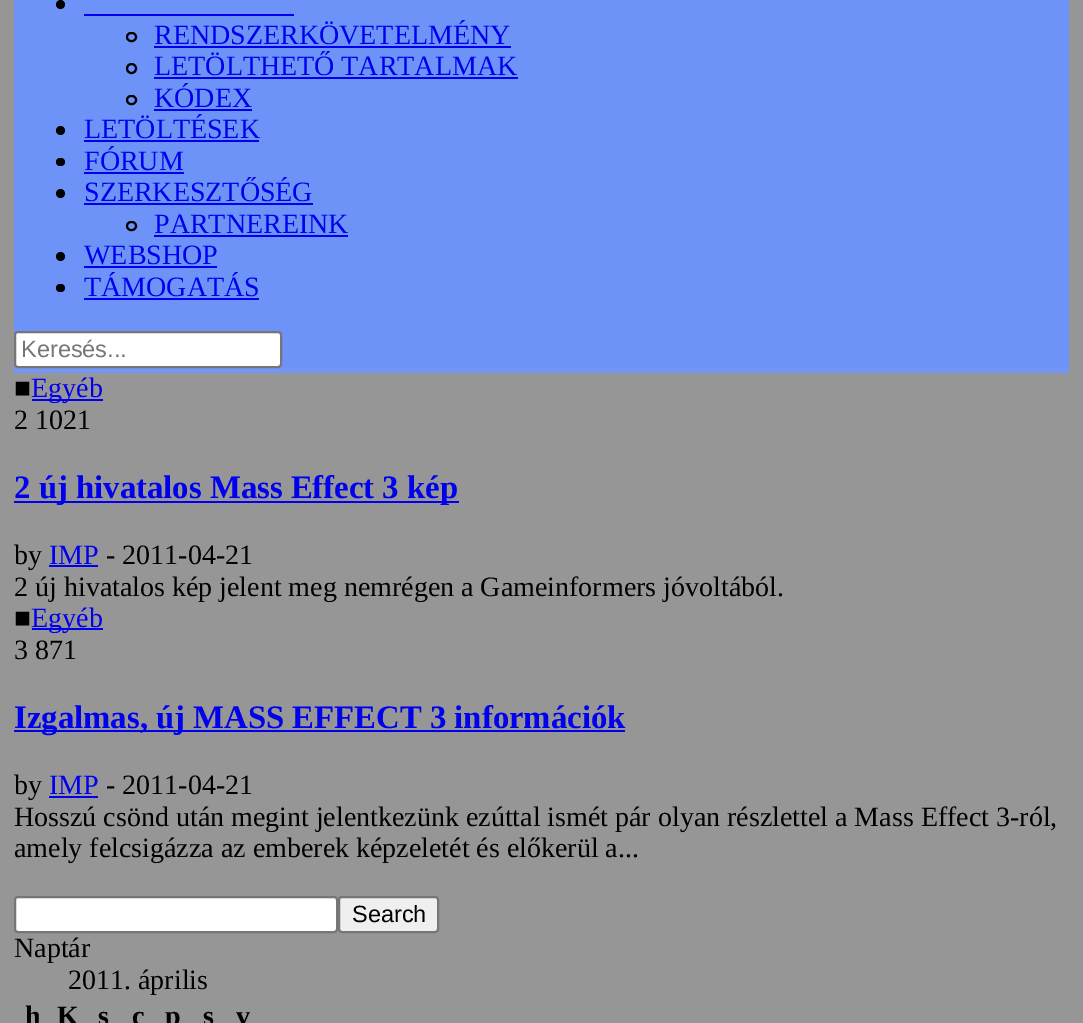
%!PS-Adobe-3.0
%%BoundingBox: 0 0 1083 1023
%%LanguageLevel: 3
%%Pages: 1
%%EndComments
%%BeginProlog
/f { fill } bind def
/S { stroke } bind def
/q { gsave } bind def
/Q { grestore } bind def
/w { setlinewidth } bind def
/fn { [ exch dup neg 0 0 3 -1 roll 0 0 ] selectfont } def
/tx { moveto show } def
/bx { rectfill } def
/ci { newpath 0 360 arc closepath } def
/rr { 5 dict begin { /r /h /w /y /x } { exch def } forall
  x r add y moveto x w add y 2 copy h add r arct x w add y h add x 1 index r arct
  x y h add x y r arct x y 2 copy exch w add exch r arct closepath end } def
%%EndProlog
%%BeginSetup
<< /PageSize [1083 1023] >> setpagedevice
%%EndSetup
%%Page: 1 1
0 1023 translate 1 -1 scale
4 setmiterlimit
0.588 setgray
0 0 1083 1023 bx
0.427 0.576 0.976 setrgbcolor
14 0 1055 368 bx
0.455 0.592 0.969 setrgbcolor
14 368 1055 5 bx
0 setgray
60.5 4.5 4.5 ci f
0 0 0.933 setrgbcolor
84 14 210 2 bx
0 setgray
2 w
127 33 9 8 4 rr S
/LiberationSerif-Regular 28 fn
0 0 0.933 setrgbcolor
(RENDSZERKÖVETELMÉNY) 154 44 tx
154 46 357 2 bx
0 setgray
131.5 68.5 4.5 ci S
0 0 0.933 setrgbcolor
(LETÖLTHETŐ TARTALMAK) 154 75 tx
154 77 364 2 bx
0 setgray
127 96 9 8 4 rr S
0 0 0.933 setrgbcolor
(KÓDEX) 154 107 tx
154 109 98 2 bx
0 setgray
60.5 130.5 4.5 ci f
0 0 0.933 setrgbcolor
(LETÖLTÉSEK) 84 138 tx
84 140 175 2 bx
0 setgray
56 158 9 8 4 rr f
0 0 0.933 setrgbcolor
(FÓRUM) 84 170 tx
84 172 100 2 bx
0 setgray
60.5 193.5 4.5 ci f
0 0 0.933 setrgbcolor
(SZERKESZTŐSÉG) 84 201 tx
84 203 229 2 bx
0 setgray
127 222 9 8 4 rr S
0 0 0.933 setrgbcolor
(PARTNEREINK) 154 233 tx
154 235 194 2 bx
0 setgray
60.5 256.5 4.5 ci f
0 0 0.933 setrgbcolor
(WEBSHOP) 84 264 tx
84 266 133 2 bx
0 setgray
56 284 9 8 4 rr f
0 0 0.933 setrgbcolor
(TÁMOGATÁS) 84 296 tx
84 298 175 2 bx
1 setgray
15 332 266 35 3 rr q f Q
0.463 setgray
S
/LiberationSans-Regular 23.5 fn
0.459 setgray
(Keresés...) 21 357 tx
/LiberationSerif-Regular 28 fn
0 setgray
(■) 14 397 tx
0 0 0.933 setrgbcolor
32 399 71 2 bx
(Egyéb) 31 397 tx
0 setgray
(2 1021) 14 429 tx
0 0 0.933 setrgbcolor
14 501 445 2 bx
/LiberationSerif-Bold 32.75 fn
(2 új hivatalos Mass Effect 3 kép) 14 498 tx
/LiberationSerif-Regular 28 fn
0 setgray
(by) 14 564 tx
0 0 0.933 setrgbcolor
(IMP) 49 564 tx
49 565 49 2 bx
0 setgray
(- 2011-04-21) 106 564 tx
(2 új hivatalos kép jelent meg nemrégen a Gameinformers jóvoltából.) 14 596 tx
(■) 14 627 tx
0 0 0.933 setrgbcolor
32 628 71 2 bx
(Egyéb) 31 627 tx
0 setgray
(3 871) 14 659 tx
0 0 0.933 setrgbcolor
14 730 611 2 bx
/LiberationSerif-Bold 32.75 fn
(Izgalmas, új MASS EFFECT 3 információk) 14 728 tx
/LiberationSerif-Regular 28 fn
0 setgray
(by) 14 794 tx
0 0 0.933 setrgbcolor
(IMP) 49 794 tx
49 796 49 2 bx
0 setgray
(- 2011-04-21) 106 794 tx
(Hosszú csönd után megint jelentkezünk ezúttal ismét pár olyan részlettel a Mass Effect 3-ról,) 14 826 tx
(amely felcsigázza az emberek képzeletét és előkerül a...) 14 857 tx
1 setgray
15 897 322 35 3 rr q f Q
0.463 setgray
S
0.937 setgray
339 897 99 35 3 rr q f Q
0.463 setgray
S
/LiberationSans-Regular 23.5 fn
0 setgray
(Search) 352 922 tx
/LiberationSerif-Regular 28 fn
(Naptár) 14 957 tx
(2011. április) 68 989 tx
/LiberationSerif-Bold 28 fn
(h) 25 1025 tx
(K) 57 1025 tx
(s) 98 1025 tx
(c) 132 1025 tx
(p) 165 1025 tx
(s) 203 1025 tx
(v) 236 1025 tx
showpage
%%EOF
